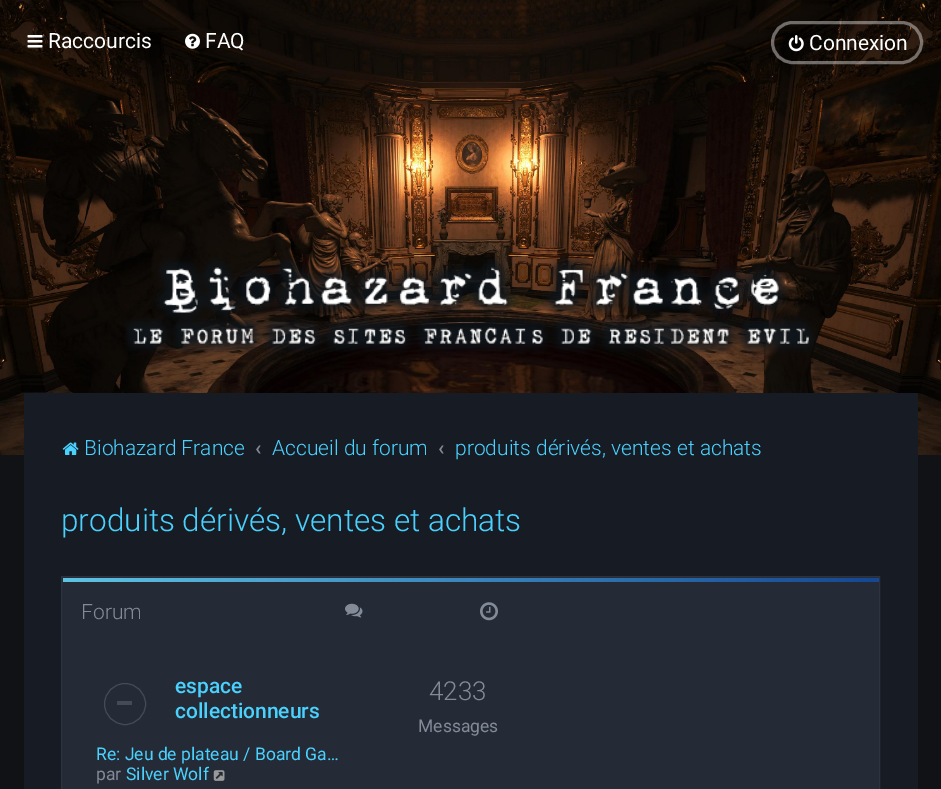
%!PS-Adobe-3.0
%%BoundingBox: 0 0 941 789
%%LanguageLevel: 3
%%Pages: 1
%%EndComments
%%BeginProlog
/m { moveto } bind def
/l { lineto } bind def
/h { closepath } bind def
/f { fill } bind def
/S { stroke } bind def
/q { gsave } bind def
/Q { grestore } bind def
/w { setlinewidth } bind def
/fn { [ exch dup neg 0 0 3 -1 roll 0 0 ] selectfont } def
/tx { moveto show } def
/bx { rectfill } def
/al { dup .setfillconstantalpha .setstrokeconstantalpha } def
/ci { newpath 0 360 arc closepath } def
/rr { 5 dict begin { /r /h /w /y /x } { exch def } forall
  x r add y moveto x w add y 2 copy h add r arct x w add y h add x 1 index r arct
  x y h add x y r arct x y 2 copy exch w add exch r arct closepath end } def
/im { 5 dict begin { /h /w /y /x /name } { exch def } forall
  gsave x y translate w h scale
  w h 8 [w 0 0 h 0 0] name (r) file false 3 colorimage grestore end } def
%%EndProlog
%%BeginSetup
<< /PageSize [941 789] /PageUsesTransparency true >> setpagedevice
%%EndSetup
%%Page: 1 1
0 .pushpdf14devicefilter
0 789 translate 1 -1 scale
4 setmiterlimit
0.063 0.071 0.086 setrgbcolor
0 0 941 789 bx
(image0.raw) 0 0 941 455 im
(image1.raw) 124 256 695 99 im
(image2.raw) 27 35 16 13 im
/Roboto-Regular 21 fn
1 setgray
(Raccourcis) 48 48 tx
(image3.raw) 185 33 15 16 im
(FAQ) 205 48 tx
0.4 al
3 w
772.5 22.5 149 40 20 rr S
1 al
(image4.raw) 788 35 16 17 im
(Connexion) 809 50 tx
0.09 0.106 0.141 setrgbcolor
24 393 894 396 bx
(image5.raw) 62 442 17 13 im
/Roboto-Light 21 fn
0.29 0.824 1 setrgbcolor
(Biohazard France) 84 455 tx
/Roboto-Medium 21 fn
0.514 0.545 0.596 setrgbcolor
(‹) 255 455 tx
/Roboto-Light 21 fn
0.29 0.824 1 setrgbcolor
(Accueil du forum) 272 455 tx
/Roboto-Medium 21 fn
0.514 0.545 0.596 setrgbcolor
(‹) 438 455 tx
/Roboto-Light 21 fn
0.29 0.824 1 setrgbcolor
(produits dérivés, ventes et achats) 455 455 tx
/Roboto-Light 31.5 fn
(produits dérivés, ventes et achats) 61 531 tx
0.141 0.165 0.212 setrgbcolor
61.5 576.5 m 879.5 576.5 l 879.5 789.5 l 61.5 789.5 l h q f Q
0.176 0.2 0.243 setrgbcolor
1 w
S
q 63 578 m 879 578 l 879 582 l 63 582 l h clip newpath
<< /ShadingType 2 /ColorSpace /DeviceRGB /Coords [63 579 879 579] /Extend [true true] /Function << /FunctionType 2 /Domain [0 1] /C0 [0.373 0.765 0.894] /C1 [0.082 0.278 0.576] /N 1 >> >> shfill Q
/Roboto-Light 21 fn
0.514 0.545 0.596 setrgbcolor
(Forum) 81 619 tx
(image6.raw) 345 603 18 15 im
(image7.raw) 480 602 18 19 im
0.271 0.29 0.329 setrgbcolor
125 704 20.5 ci S
117 701 15 4 bx
/Roboto-Medium 21 fn
0.29 0.824 1 setrgbcolor
(espace) 175 693 tx
(collectionneurs) 175 718 tx
/Roboto-Light 26 fn
0.514 0.545 0.596 setrgbcolor
(4233) 429 700 tx
/Roboto-Regular 17.5 fn
(Messages) 418 732 tx
0.29 0.824 1 setrgbcolor
(Re: Jeu de plateau / Board Ga…) 96 760 tx
0.514 0.545 0.596 setrgbcolor
(par) 96 780 tx
0.29 0.824 1 setrgbcolor
(Silver Wolf) 126 780 tx
(image8.raw) 213 770 12 11 im
.poppdf14devicefilter showpage
%%EOF
